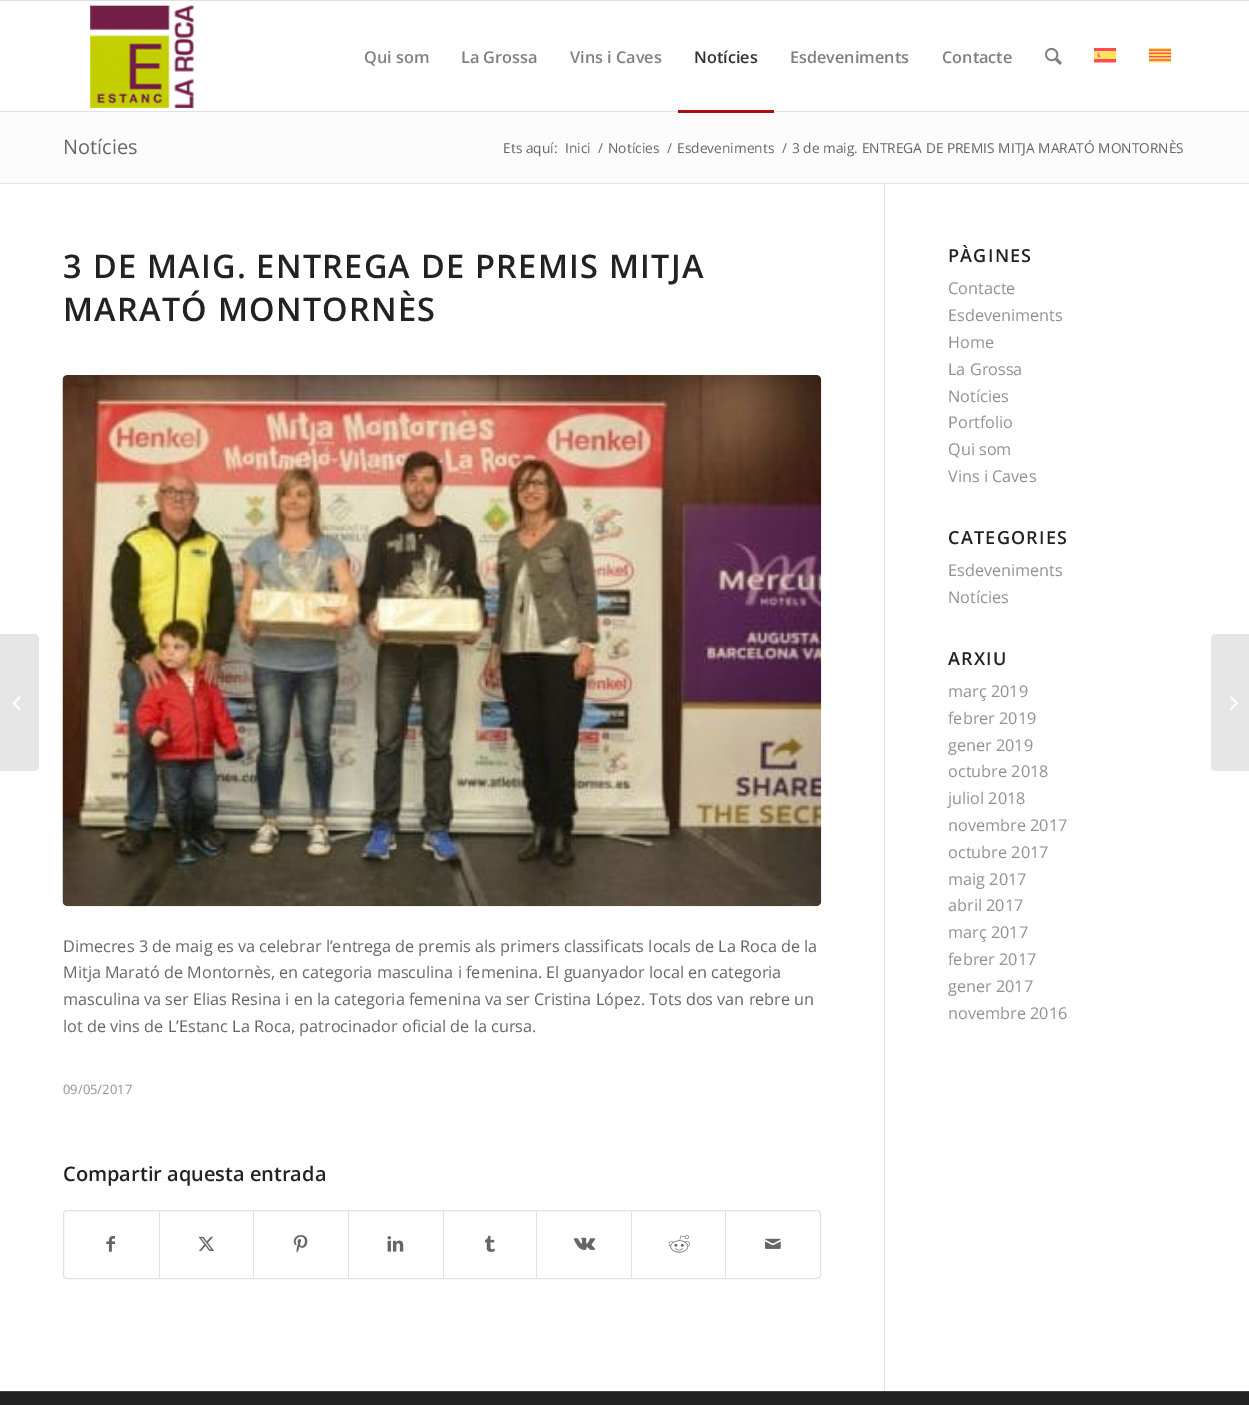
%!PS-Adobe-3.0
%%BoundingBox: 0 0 1249 1405
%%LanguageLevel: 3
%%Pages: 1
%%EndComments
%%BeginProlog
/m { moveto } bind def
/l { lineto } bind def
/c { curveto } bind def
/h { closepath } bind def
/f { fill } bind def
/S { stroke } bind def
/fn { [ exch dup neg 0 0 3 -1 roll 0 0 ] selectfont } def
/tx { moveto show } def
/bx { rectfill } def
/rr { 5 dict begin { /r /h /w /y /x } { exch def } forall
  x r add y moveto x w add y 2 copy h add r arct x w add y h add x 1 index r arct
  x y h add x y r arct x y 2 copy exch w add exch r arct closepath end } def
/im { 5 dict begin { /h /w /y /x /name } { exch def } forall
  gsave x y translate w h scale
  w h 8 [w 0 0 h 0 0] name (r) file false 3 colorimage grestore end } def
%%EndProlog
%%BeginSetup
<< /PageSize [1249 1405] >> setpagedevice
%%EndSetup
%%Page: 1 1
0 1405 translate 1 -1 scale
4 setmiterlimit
1 setgray
0 0 1249 1405 bx
0.882 setgray
0 0 1249 1 bx
0 111 1249 1 bx
(image0.raw) 90 5 105 103 im
/OpenSans-SemiBold 16.25 fn
0.502 setgray
(Qui som) 364 63 tx
(La Grossa) 461 63 tx
(Vins i Caves) 570 63 tx
0.2 setgray
(Notícies) 694 63 tx
0.659 0.063 0.063 setrgbcolor
678 110 96 3 bx
0.502 setgray
(Esdeveniments) 790 63 tx
(Contacte) 942 63 tx
(image1.raw) 1045 47 17 18 im
(image2.raw) 1094 48 22 15 im
(image3.raw) 1149 48 22 15 im
0.902 setgray
0 634 m 34 634 l 37 634 39 636 39 639 c 39 766 l 39 769 37 771 34 771 c 0 771 l h f
(image4.raw) 12 696 9 14 im
0.988 setgray
0 113 1249 70 bx
/OpenSans-Regular 20 fn
0.4 setgray
(Notícies) 63 154 tx
/OpenSans-Regular 13.75 fn
(Ets aquí:) 503 153 tx
(Inici) 565 153 tx
(/) 598 153 tx
(Notícies) 608 153 tx
(/) 667 153 tx
(Esdeveniments) 677 153 tx
(/) 782 153 tx
(3 de maig. ENTREGA DE PREMIS MITJA MARATÓ MONTORNÈS) 792 153 tx
0.882 setgray
0 183 1249 1 bx
884 184 1 1207 bx
/OpenSans-SemiBold 32.5 fn
0.133 setgray
63 278 m 1.25 0 (3 DE MAIG. ENTREGA DE PREMIS MITJA) ashow
63 321 m 1.25 0 (MARATÓ MONTORNÈS) ashow
(image5.raw) 62 375 760 532 im
/OpenSans-Regular 16.25 fn
0.4 setgray
(Dimecres 3 de maig es va celebrar l’entrega de premis als primers classificats locals de La Roca de la) 63 952 tx
(Mitja Marató de Montornès, en categoria masculina i femenina. El guanyador local en categoria) 63 978 tx
(masculina va ser Elias Resina i en la categoria femenina va ser Cristina López. Tots dos van rebre un) 63 1005 tx
(lot de vins de L’Estanc La Roca, patrocinador oficial de la cursa.) 63 1032 tx
/OpenSans-Regular 13 fn
0.569 setgray
(09/05/2017) 63 1094 tx
/OpenSans-SemiBold 20 fn
0.133 setgray
(Compartir aquesta entrada) 63 1181 tx
0.882 setgray
63.5 1210.5 757 68 3.5 rr S
(image6.raw) 106 1236 9 16 im
159 1211 1 67 bx
(image7.raw) 198 1236 16 15 im
253 1211 1 67 bx
(image8.raw) 293 1235 15 18 im
348 1211 1 67 bx
(image9.raw) 387 1236 17 16 im
443 1211 1 67 bx
(image10.raw) 485 1235 10 17 im
536 1211 1 67 bx
(image11.raw) 573 1237 23 13 im
631 1211 1 67 bx
(image12.raw) 668 1235 22 18 im
725 1211 1 67 bx
(image13.raw) 765 1238 16 11 im
/OpenSans-SemiBold 18 fn
0.133 setgray
948 262 m 1.25 0 (PÀGINES) ashow
/OpenSans-Regular 16.25 fn
0.569 setgray
(Contacte) 948 294 tx
(Esdeveniments) 948 321 tx
(Home) 948 348 tx
(La Grossa) 948 375 tx
(Notícies) 948 402 tx
(Portfolio) 948 428 tx
(Qui som) 948 455 tx
(Vins i Caves) 948 482 tx
/OpenSans-SemiBold 18 fn
0.133 setgray
948 544 m 1.25 0 (CATEGORIES) ashow
/OpenSans-Regular 16.25 fn
0.569 setgray
(Esdeveniments) 948 576 tx
(Notícies) 948 603 tx
/OpenSans-SemiBold 18 fn
0.133 setgray
948 665 m 1.25 0 (ARXIU) ashow
/OpenSans-Regular 16.25 fn
0.569 setgray
(març 2019) 948 697 tx
(febrer 2019) 948 724 tx
(gener 2019) 948 751 tx
(octubre 2018) 948 777 tx
(juliol 2018) 948 804 tx
(novembre 2017) 948 831 tx
(octubre 2017) 948 858 tx
(maig 2017) 948 885 tx
(abril 2017) 948 911 tx
(març 2017) 948 938 tx
(febrer 2017) 948 965 tx
(gener 2017) 948 992 tx
(novembre 2016) 948 1019 tx
0.133 setgray
0 1392 1249 13 bx
0.267 setgray
0 1391 1249 1 bx
0.902 setgray
1216 634 m 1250 634 l 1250 771 l 1216 771 l 1213 771 1211 769 1211 766 c 1211 639 l 1211 636 1213 634 1216 634 c h f
(image14.raw) 1230 696 8 14 im
showpage
%%EOF
